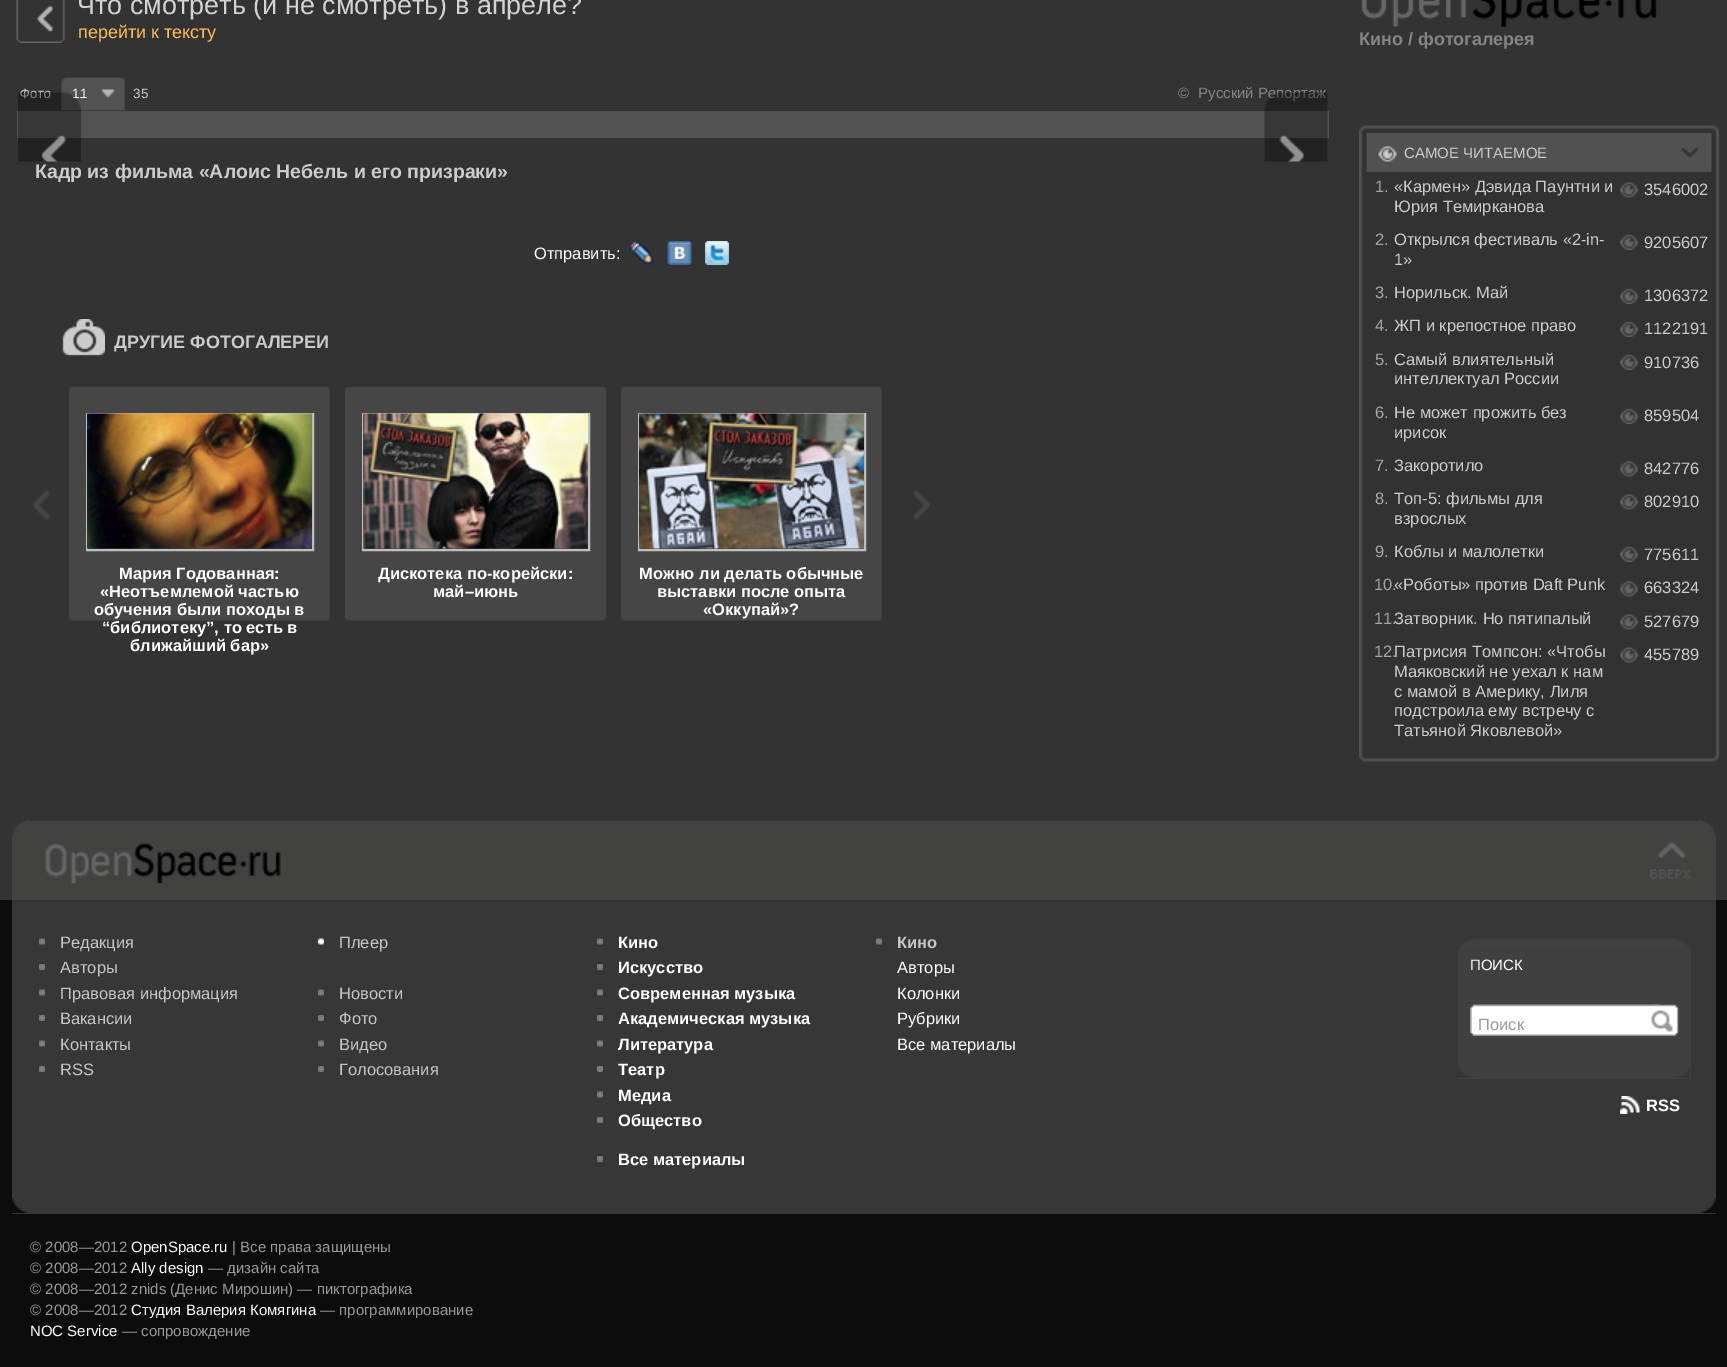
%!PS-Adobe-3.0
%%BoundingBox: 0 0 1727 1367
%%LanguageLevel: 3
%%Pages: 1
%%EndComments
%%BeginProlog
/w { setlinewidth } bind def
/fn { [ exch dup neg 0 0 3 -1 roll 0 0 ] selectfont } def
/tx { moveto show } def
/bx { rectfill } def
/im { 5 dict begin { /h /w /y /x /name } { exch def } forall
  gsave x y translate w h scale
  w h 8 [w 0 0 h 0 0] name (r) file false 3 colorimage grestore end } def
%%EndProlog
%%BeginSetup
<< /PageSize [1727 1367] >> setpagedevice
%%EndSetup
%%Page: 1 1
0 1367 translate 1 -1 scale
4 setmiterlimit
0.2 setgray
0 0 1727 1367 bx
(image0.raw) 16 0 49 43 im
/LiberationSans-Regular 27 fn
0.827 setgray
(Что смотреть \(и не смотреть\) в апреле?) 77 14 tx
/LiberationSans-Regular 18 fn
1 0.741 0.357 setrgbcolor
(перейти к тексту) 78 38 tx
/LiberationSans-Regular 13.5 fn
0.8 setgray
(Фото) 20 98 tx
(image1.raw) 61 77 64 34 im
1 setgray
(11) 72 98 tx
0.8 setgray
(35) 133 98 tx
/LiberationSans-Regular 15 fn
0.522 setgray
(©) 1178 98 tx
(Русский Репортаж) 1198 98 tx
0.322 setgray
17 111 1312 27 bx
(image2.raw) 18 92 63 70 im
(image3.raw) 1264 92 64 70 im
/LiberationSans-Bold 19.5 fn
0.8 setgray
(Кадр из фильма «Алоис Небель и его призраки») 35 178 tx
/LiberationSans-Regular 16.5 fn
1 setgray
(Отправить:) 534 259 tx
(image4.raw) 630 241 24 24 im
(image5.raw) 667 241 25 24 im
(image6.raw) 705 241 24 24 im
(image7.raw) 62 319 43 37 im
/LiberationSans-Bold 18 fn
0.8 setgray
(ДРУГИЕ ФОТОГАЛЕРЕИ) 114 348 tx
(image8.raw) 33 490 17 30 im
(image9.raw) 913 490 17 30 im
(image10.raw) 69 386 261 235 im
0.749 setgray
2 w
87 414 226 136 rectstroke
(image11.raw) 87 413 225 136 im
/LiberationSans-Bold 16.5 fn
1 setgray
(Мария Годованная:) 119 579 tx
(«Неотъемлемой частью) 100 597 tx
(обучения были походы в) 94 615 tx
(“библиотеку”, то есть в) 102 633 tx
(ближайший бар») 130 651 tx
(image12.raw) 345 386 261 235 im
0.749 setgray
363 414 226 136 rectstroke
(image13.raw) 363 413 225 136 im
1 setgray
(Дискотека по-корейски:) 378 579 tx
(май–июнь) 433 597 tx
(image10.raw) 621 386 261 235 im
0.749 setgray
639 414 226 136 rectstroke
(image14.raw) 639 413 225 136 im
1 setgray
(Можно ли делать обычные) 639 579 tx
(выставки после опыта) 657 597 tx
(«Оккупай»?) 703 615 tx
(image15.raw) 1361 0 296 27 im
/LiberationSans-Bold 18 fn
0.522 setgray
(Кино / фотогалерея) 1359 45 tx
(image16.raw) 1359 125 360 8 im
(image17.raw) 1359 133 360 629 im
(image18.raw) 1366 133 346 39 im
/LiberationSans-Regular 15 fn
0.8 setgray
(САМОЕ ЧИТАЕМОЕ) 1404 158 tx
/LiberationSans-Regular 16.5 fn
0.651 0.651 0.655 setrgbcolor
(1.) 1375 192 tx
0.8 setgray
(«Кармен» Дэвида Паунтни и) 1394 192 tx
(Юрия Темирканова) 1394 212 tx
(image19.raw) 1620 182 18 16 im
(3546002) 1644 195 tx
0.651 0.651 0.655 setrgbcolor
(2.) 1375 245 tx
0.8 setgray
(Открылся фестиваль «2-in-) 1394 245 tx
(1») 1394 265 tx
(image20.raw) 1620 234 18 16 im
(9205607) 1644 248 tx
0.651 0.651 0.655 setrgbcolor
(3.) 1375 298 tx
0.8 setgray
(Норильск. Май) 1394 298 tx
(image20.raw) 1620 288 18 16 im
(1306372) 1644 301 tx
0.651 0.651 0.655 setrgbcolor
(4.) 1375 331 tx
0.8 setgray
(ЖП и крепостное право) 1394 331 tx
(image20.raw) 1620 321 18 16 im
(1122191) 1644 334 tx
0.651 0.651 0.655 setrgbcolor
(5.) 1375 365 tx
0.8 setgray
(Самый влиятельный) 1394 365 tx
(интеллектуал России) 1394 384 tx
(image20.raw) 1620 354 18 16 im
(910736) 1644 368 tx
0.651 0.651 0.655 setrgbcolor
(6.) 1375 418 tx
0.8 setgray
(Не может прожить без) 1394 418 tx
(ирисок) 1394 438 tx
(image20.raw) 1620 408 18 16 im
(859504) 1644 421 tx
0.651 0.651 0.655 setrgbcolor
(7.) 1375 471 tx
0.8 setgray
(Закоротило) 1394 471 tx
(image19.raw) 1620 461 18 16 im
(842776) 1644 474 tx
0.651 0.651 0.655 setrgbcolor
(8.) 1375 504 tx
0.8 setgray
(Топ-5: фильмы для) 1394 504 tx
(взрослых) 1394 524 tx
(image19.raw) 1620 494 18 16 im
(802910) 1644 507 tx
0.651 0.651 0.655 setrgbcolor
(9.) 1375 557 tx
0.8 setgray
(Коблы и малолетки) 1394 557 tx
(image20.raw) 1620 546 18 16 im
(775611) 1644 560 tx
0.651 0.651 0.655 setrgbcolor
(10.) 1374 590 tx
0.8 setgray
(«Роботы» против Daft Punk) 1394 590 tx
(image19.raw) 1620 581 18 16 im
(663324) 1644 593 tx
0.651 0.651 0.655 setrgbcolor
(11.) 1374 624 tx
0.8 setgray
(Затворник. Но пятипалый) 1394 624 tx
(image19.raw) 1620 614 18 16 im
(527679) 1644 627 tx
0.651 0.651 0.655 setrgbcolor
(12.) 1374 657 tx
0.8 setgray
(Патрисия Томпсон: «Чтобы) 1394 657 tx
(Маяковский не уехал к нам) 1394 677 tx
(с мамой в Америку, Лиля) 1394 697 tx
(подстроила ему встречу с) 1394 716 tx
(Татьяной Яковлевой») 1394 736 tx
(image19.raw) 1620 647 18 16 im
(455789) 1644 660 tx
0.259 0.259 0.255 setrgbcolor
12 821 1704 79 bx
(image21.raw) 12 820 18 15 im
(image22.raw) 1698 820 18 15 im
(image23.raw) 45 843 236 40 im
(image24.raw) 1650 842 41 37 im
0.047 setgray
0 1214 1727 153 bx
0.216 setgray
12 903 1704 311 bx
(image25.raw) 1699 1198 17 15 im
0.047 setgray
1716 900 11 314 bx
0 900 12 314 bx
(image26.raw) 12 1198 17 15 im
(image27.raw) 39 938 6 7 im
0.776 setgray
(Редакция) 60 948 tx
(image28.raw) 39 964 6 6 im
(Авторы) 60 973 tx
(image27.raw) 39 989 6 7 im
(Правовая информация) 60 999 tx
(image28.raw) 39 1015 6 6 im
(Вакансии) 60 1024 tx
(image27.raw) 39 1040 6 7 im
(Контакты) 60 1050 tx
(image28.raw) 39 1066 6 6 im
(RSS) 60 1075 tx
(image29.raw) 318 938 6 7 im
(Плеер) 339 948 tx
(image30.raw) 318 989 6 7 im
(Новости) 339 999 tx
(image31.raw) 318 1015 6 6 im
(Фото) 339 1024 tx
(image30.raw) 318 1040 6 7 im
(Видео) 339 1050 tx
(image31.raw) 318 1066 6 6 im
(Голосования) 339 1075 tx
(image30.raw) 597 938 6 7 im
/LiberationSans-Bold 16.5 fn
1 setgray
(Кино) 618 948 tx
(image31.raw) 597 964 6 6 im
(Искусство) 618 973 tx
(image30.raw) 597 989 6 7 im
(Современная музыка) 618 999 tx
(image31.raw) 597 1015 6 6 im
(Академическая музыка) 618 1024 tx
(image30.raw) 597 1040 6 7 im
(Литература) 618 1050 tx
(image31.raw) 597 1066 6 6 im
(Театр) 618 1075 tx
(image30.raw) 597 1091 6 7 im
(Медиа) 618 1101 tx
(image31.raw) 597 1117 6 6 im
(Общество) 618 1126 tx
(image31.raw) 597 1156 6 6 im
(Все материалы) 618 1165 tx
(image27.raw) 876 938 6 7 im
0.776 setgray
(Кино) 897 948 tx
/LiberationSans-Regular 16.5 fn
1 setgray
(Авторы) 897 973 tx
(Колонки) 897 999 tx
(Рубрики) 897 1024 tx
(Все материалы) 897 1050 tx
(image32.raw) 1459 938 231 13 im
0.251 setgray
1458 951 233 128 bx
(image33.raw) 1458 1066 232 12 im
/LiberationSans-Regular 15 fn
1 setgray
(ПОИСК) 1470 970 tx
(image34.raw) 1470 1004 191 32 im
/LiberationSans-Regular 16.5 fn
0.6 setgray
(Поиск) 1478 1030 tx
(image35.raw) 1651 1004 28 32 im
(image36.raw) 1620 1096 20 18 im
/LiberationSans-Bold 16.5 fn
1 setgray
(RSS) 1646 1111 tx
/LiberationSans-Regular 15 fn
0.6 setgray
(© 2008—2012) 30 1252 tx
1 setgray
(OpenSpace.ru) 131 1252 tx
0.6 setgray
(| Все права защищены) 232 1252 tx
(© 2008—2012) 30 1273 tx
1 setgray
(Ally design) 131 1273 tx
0.6 setgray
(— дизайн сайта) 208 1273 tx
(© 2008—2012 znids \(Денис Мирошин\) — пиктографика) 30 1294 tx
(© 2008—2012) 30 1315 tx
1 setgray
(Студия Валерия Комягина) 131 1315 tx
0.6 setgray
(— программирование) 320 1315 tx
1 setgray
(NOC Service) 30 1336 tx
0.6 setgray
(— сопровождение) 122 1336 tx
showpage
%%EOF
